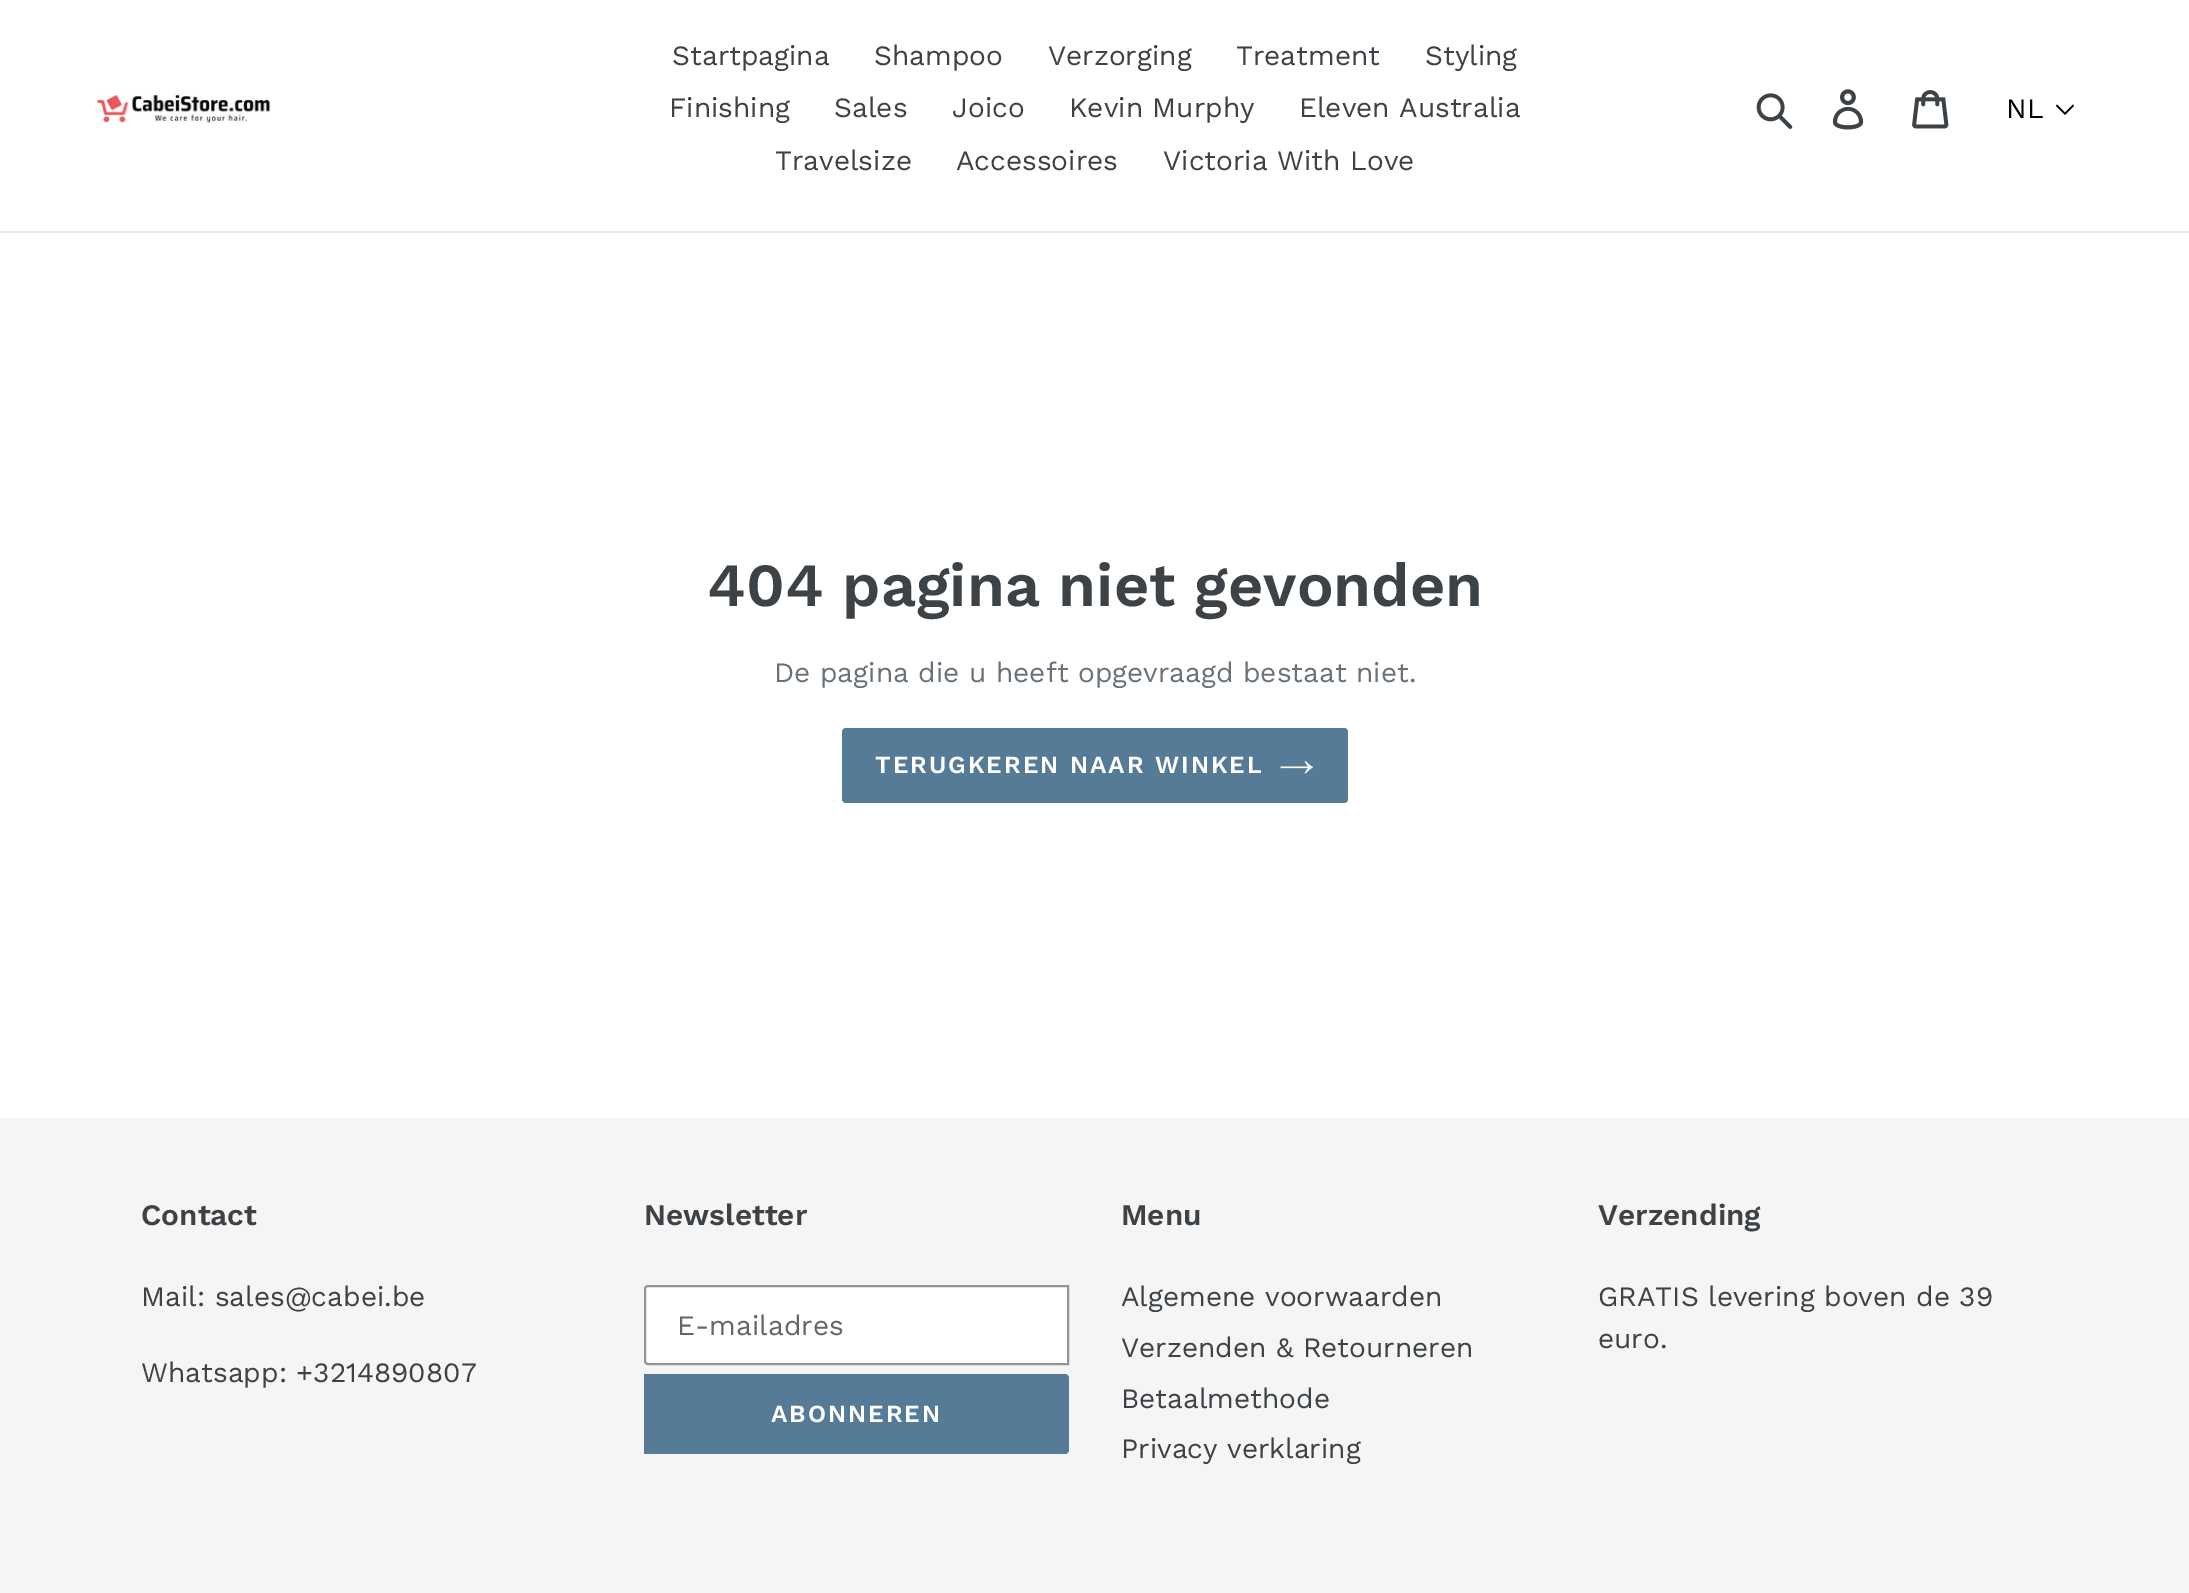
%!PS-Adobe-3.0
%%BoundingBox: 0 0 2189 1593
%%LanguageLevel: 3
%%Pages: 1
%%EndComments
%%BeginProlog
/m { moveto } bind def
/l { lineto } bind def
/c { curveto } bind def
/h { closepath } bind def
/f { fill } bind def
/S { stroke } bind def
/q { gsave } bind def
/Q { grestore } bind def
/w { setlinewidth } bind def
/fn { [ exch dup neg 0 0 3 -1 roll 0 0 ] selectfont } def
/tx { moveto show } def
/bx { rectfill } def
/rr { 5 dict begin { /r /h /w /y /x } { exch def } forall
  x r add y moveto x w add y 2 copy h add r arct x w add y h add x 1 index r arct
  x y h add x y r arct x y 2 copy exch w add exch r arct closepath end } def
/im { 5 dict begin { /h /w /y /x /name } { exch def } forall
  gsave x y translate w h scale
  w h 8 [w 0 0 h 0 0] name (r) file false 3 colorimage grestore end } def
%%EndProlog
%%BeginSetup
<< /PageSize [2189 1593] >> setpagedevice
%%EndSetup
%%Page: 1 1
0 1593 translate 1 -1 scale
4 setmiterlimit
1 setgray
0 0 2189 1593 bx
0.91 0.914 0.922 setrgbcolor
0 231 2189 2 bx
(image0.raw) 96 94 175 30 im
/WorkSans-Regular 28 fn
0.239 0.259 0.275 setrgbcolor
(Startpagina) 672 65 tx
(Shampoo) 874 65 tx
(Verzorging) 1048 65 tx
(Treatment) 1236 65 tx
(Styling) 1425 65 tx
(Finishing) 669 117 tx
(Sales) 834 117 tx
(Joico) 952 117 tx
(Kevin Murphy) 1069 117 tx
(Eleven Australia) 1299 117 tx
(Travelsize) 775 170 tx
(Accessoires) 956 170 tx
(Victoria With Love) 1163 170 tx
(image1.raw) 1756 93 37 36 im
(image2.raw) 1832 89 32 41 im
(image3.raw) 1912 90 37 39 im
0 setgray
2065 115 m 2056 106 l 2057 104.5 l 2065 112.5 l 2073 104.5 l 2074 106 l h f
(NL) 2006 118 tx
/WorkSans-SemiBold 61.25 fn
0.239 0.259 0.275 setrgbcolor
(404 pagina niet gevonden) 707 606 tx
/WorkSans-Regular 28 fn
0.412 0.447 0.482 setrgbcolor
(De pagina die u heeft opgevraagd bestaat niet.) 774 682 tx
0.333 0.482 0.592 setrgbcolor
842 728 506 75 4 rr f
/WorkSans-SemiBold 24.5 fn
1 setgray
875 773 m 2 0 (TERUGKEREN NAAR WINKEL) ashow
(image4.raw) 1280 761 33 13 im
0.961 setgray
0 1118 2189 475 bx
/WorkSans-SemiBold 29.75 fn
0.239 0.259 0.275 setrgbcolor
(Contact) 141 1225 tx
/WorkSans-Regular 28 fn
(Mail: sales@cabei.be) 141 1306 tx
(Whatsapp: +3214890807) 141 1382 tx
/WorkSans-SemiBold 29.75 fn
(Newsletter) 644 1225 tx
1 setgray
648 1286 m 1068 1286 l 1068 1364 l 648 1364 l 646.5 1364 645 1362.5 645 1361 c 645 1289 l 645 1287.5 646.5 1286 648 1286 c h q f Q
0.58 setgray
2 w
S
/WorkSans-Regular 28 fn
0.4 setgray
(E-mailadres) 677 1335 tx
0.333 0.482 0.592 setrgbcolor
644 1374 m 1065 1374 l 1067 1374 1069 1376 1069 1378 c 1069 1450 l 1069 1452 1067 1454 1065 1454 c 644 1454 l h f
/WorkSans-SemiBold 24.5 fn
1 setgray
771 1422 m 2 0 (ABONNEREN) ashow
/WorkSans-SemiBold 29.75 fn
0.239 0.259 0.275 setrgbcolor
(Menu) 1121 1225 tx
/WorkSans-Regular 28 fn
(Algemene voorwaarden) 1121 1306 tx
(Verzenden & Retourneren) 1121 1357 tx
(Betaalmethode) 1121 1408 tx
(Privacy verklaring) 1121 1458 tx
/WorkSans-SemiBold 29.75 fn
(Verzending) 1598 1225 tx
/WorkSans-Regular 28 fn
(GRATIS levering boven de 39) 1598 1306 tx
(euro.) 1598 1348 tx
showpage
%%EOF
